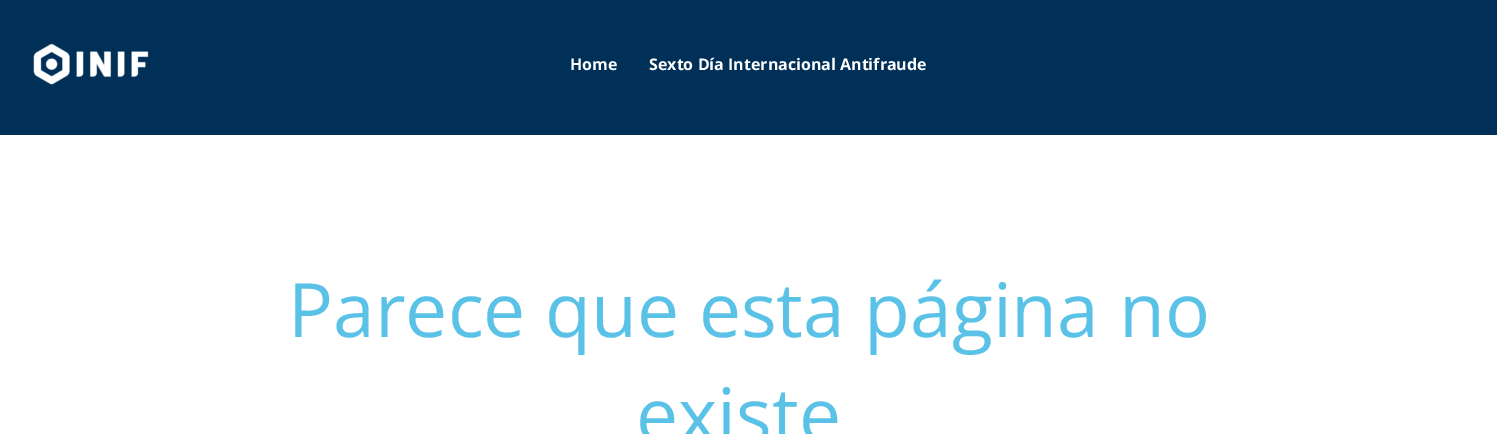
%!PS-Adobe-3.0
%%BoundingBox: 0 0 1497 434
%%LanguageLevel: 3
%%Pages: 1
%%EndComments
%%BeginProlog
/fn { [ exch dup neg 0 0 3 -1 roll 0 0 ] selectfont } def
/tx { moveto show } def
/bx { rectfill } def
/im { 5 dict begin { /h /w /y /x /name } { exch def } forall
  gsave x y translate w h scale
  w h 8 [w 0 0 h 0 0] name (r) file false 3 colorimage grestore end } def
%%EndProlog
%%BeginSetup
<< /PageSize [1497 434] >> setpagedevice
%%EndSetup
%%Page: 1 1
0 434 translate 1 -1 scale
4 setmiterlimit
1 setgray
0 0 1497 434 bx
0 0.188 0.341 setrgbcolor
0 0 1497 135 bx
(image0.raw) 33 43 116 42 im
/OpenSans-Bold 16 fn
1 setgray
(Home) 570 70 tx
(Sexto Día Internacional Antifraude) 649 70 tx
/OpenSans-Regular 75 fn
0.357 0.761 0.906 setrgbcolor
(Parece que esta página no) 288 337 tx
(existe) 636 442 tx
showpage
%%EOF
